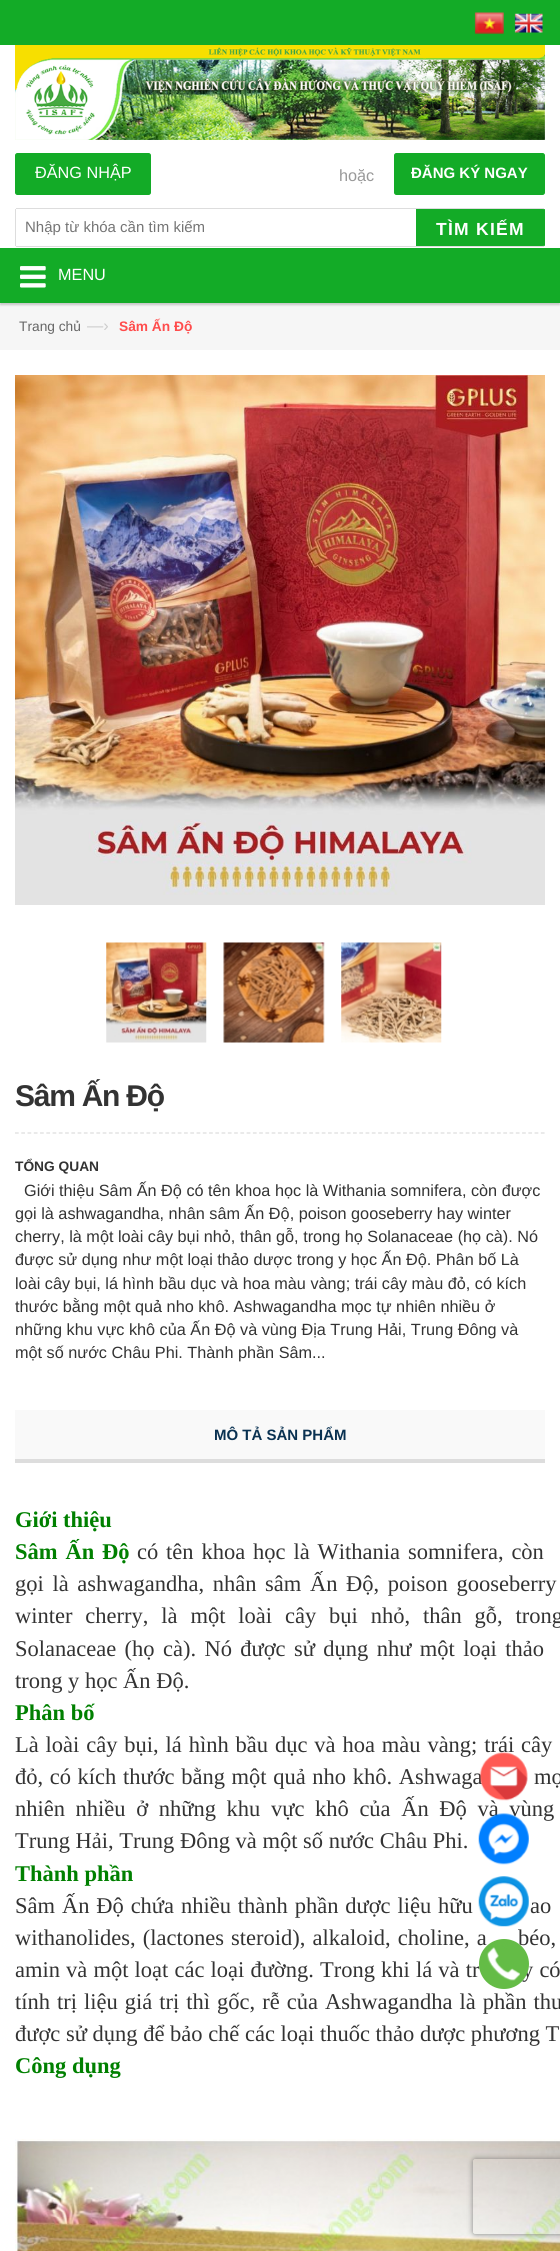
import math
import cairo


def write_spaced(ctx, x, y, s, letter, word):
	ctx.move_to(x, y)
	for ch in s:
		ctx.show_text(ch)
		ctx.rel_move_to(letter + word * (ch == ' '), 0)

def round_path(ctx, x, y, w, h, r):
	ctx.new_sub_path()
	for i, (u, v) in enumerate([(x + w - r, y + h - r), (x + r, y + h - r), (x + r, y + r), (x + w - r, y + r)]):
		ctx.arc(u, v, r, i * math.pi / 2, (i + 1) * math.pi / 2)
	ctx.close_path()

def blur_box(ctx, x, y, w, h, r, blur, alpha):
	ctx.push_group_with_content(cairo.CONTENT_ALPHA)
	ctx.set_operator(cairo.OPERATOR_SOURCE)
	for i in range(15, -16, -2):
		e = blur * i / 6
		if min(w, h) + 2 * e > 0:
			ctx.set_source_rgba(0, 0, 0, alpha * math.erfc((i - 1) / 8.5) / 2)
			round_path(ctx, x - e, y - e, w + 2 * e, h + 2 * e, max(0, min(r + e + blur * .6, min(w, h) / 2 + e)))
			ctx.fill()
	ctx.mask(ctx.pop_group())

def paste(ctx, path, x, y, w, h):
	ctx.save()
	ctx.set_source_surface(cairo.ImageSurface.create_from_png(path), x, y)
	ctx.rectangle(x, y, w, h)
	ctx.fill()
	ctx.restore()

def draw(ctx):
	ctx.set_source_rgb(1, 1, 1)
	ctx.paint()
	ctx.set_source_rgb(0.078, 0.671, 0.153)
	ctx.rectangle(0, 0, 560, 45)
	ctx.fill()
	paste(ctx, 'media/1.png', 474, 12, 30, 22)
	paste(ctx, 'media/2.png', 514, 13, 29, 20)
	paste(ctx, 'media/3.png', 15, 45, 530, 95)
	round_path(ctx, 15.5, 153.5, 135, 41, 2)
	ctx.fill_preserve()
	ctx.set_line_width(1)
	ctx.stroke()
	ctx.select_font_face('Liberation Sans')
	ctx.set_font_size(16.25)
	ctx.set_source_rgb(1, 1, 1)
	ctx.move_to(35, 178)
	ctx.show_text('ĐĂNG NHẬP')
	ctx.set_source_rgb(0.6, 0.6, 0.6)
	ctx.move_to(339, 181)
	ctx.show_text('hoặc')
	ctx.set_source_rgb(0.078, 0.671, 0.153)
	round_path(ctx, 394.5, 153.5, 150, 41, 2)
	ctx.fill_preserve()
	ctx.stroke()
	ctx.select_font_face('Liberation Sans', cairo.FONT_SLANT_NORMAL, cairo.FONT_WEIGHT_BOLD)
	ctx.set_font_size(15)
	ctx.set_source_rgb(1, 1, 1)
	ctx.move_to(411, 178)
	ctx.show_text('ĐĂNG KÝ NGAY')
	ctx.set_source_rgb(0.867, 0.867, 0.867)
	ctx.rectangle(16, 208, 528, 1)
	ctx.rectangle(16, 246, 528, 1)
	ctx.rectangle(15, 209, 1, 37)
	ctx.fill()
	ctx.select_font_face('Liberation Sans')
	ctx.set_source_rgb(0.459, 0.459, 0.459)
	ctx.move_to(25, 232)
	ctx.show_text('Nhập từ khóa cần tìm kiếm')
	ctx.set_source_rgb(0.078, 0.671, 0.153)
	ctx.new_path()
	ctx.move_to(416, 246)
	ctx.line_to(416, 209)
	ctx.line_to(542, 209)
	ctx.curve_to(544, 209, 545, 209, 545, 210)
	ctx.line_to(545, 245)
	ctx.curve_to(545, 246, 544, 246, 542, 246)
	ctx.close_path()
	ctx.fill()
	ctx.set_fill_rule(cairo.FILL_RULE_EVEN_ODD)
	ctx.new_path()
	ctx.move_to(417, 209)
	ctx.line_to(417, 246)
	ctx.line_to(416, 246)
	ctx.line_to(416, 209)
	ctx.line_to(544, 209)
	ctx.close_path()
	ctx.move_to(545, 245)
	ctx.line_to(545, 210)
	ctx.line_to(544, 209)
	ctx.line_to(544, 246)
	ctx.close_path()
	ctx.fill()
	ctx.select_font_face('Liberation Sans', cairo.FONT_SLANT_NORMAL, cairo.FONT_WEIGHT_BOLD)
	ctx.set_font_size(17.5)
	ctx.set_source_rgb(1, 1, 1)
	write_spaced(ctx, 436, 235, 'TÌM KIẾM', 1.25, 0)
	ctx.set_source_rgb(0.961, 0.961, 0.961)
	ctx.rectangle(0, 303, 560, 47)
	ctx.fill()
	ctx.set_source_rgb(0, 0, 0)
	blur_box(ctx, 0, 250, 560, 55, 0, 1, 0.2)
	ctx.set_source_rgb(0.078, 0.671, 0.153)
	ctx.rectangle(0, 248, 560, 55)
	ctx.fill()
	paste(ctx, 'media/4.png', 20, 266, 26, 22)
	ctx.select_font_face('Liberation Sans')
	ctx.set_font_size(16.25)
	ctx.set_source_rgb(1, 1, 1)
	ctx.move_to(58, 280)
	ctx.show_text('MENU')
	ctx.set_font_size(13.75)
	ctx.set_source_rgb(0.4, 0.4, 0.4)
	ctx.move_to(19, 331)
	ctx.show_text('Trang chủ')
	ctx.set_font_size(16.25)
	ctx.set_source_rgb(0.8, 0.8, 0.8)
	ctx.move_to(87, 331)
	ctx.show_text('—›')
	ctx.select_font_face('Liberation Sans', cairo.FONT_SLANT_NORMAL, cairo.FONT_WEIGHT_BOLD)
	ctx.set_font_size(13.75)
	ctx.set_source_rgb(1, 0.298, 0.298)
	ctx.move_to(119, 331)
	ctx.show_text('Sâm Ấn Độ')
	paste(ctx, 'media/5.png', 15, 375, 530, 530)
	paste(ctx, 'media/6.png', 106, 942, 101, 101)
	paste(ctx, 'media/7.png', 223, 942, 102, 101)
	paste(ctx, 'media/8.png', 341, 942, 101, 101)
	ctx.new_path()
	ctx.move_to(15, 1133)
	ctx.line_to(545, 1133)
	ctx.set_source_rgb(0.867, 0.867, 0.867)
	ctx.set_line_width(1.2)
	ctx.set_dash([3.75, 2.51])
	ctx.stroke()
	ctx.set_font_size(30)
	ctx.set_source_rgb(0.2, 0.2, 0.2)
	write_spaced(ctx, 15, 1106, 'Sâm Ấn Độ', -1.25, 0)
	ctx.set_font_size(13.75)
	ctx.move_to(15, 1171)
	ctx.show_text('TỔNG QUAN')
	ctx.select_font_face('Liberation Sans')
	ctx.set_font_size(16.25)
	for x, y, s in [
		(24, 1196, 'Giới thiệu Sâm Ấn Độ có tên khoa học là Withania somnifera, còn được'),
		(15, 1219, 'gọi là ashwagandha, nhân sâm Ấn Độ, poison gooseberry hay winter'),
		(15, 1242, 'cherry, là một loài cây bụi nhỏ, thân gỗ, trong họ Solanaceae (họ cà). Nó'),
		(15, 1265, 'được sử dụng như một loại thảo dược trong y học Ấn Độ. Phân bố Là'),
		(15, 1289, 'loài cây bụi, lá hình bầu dục và hoa màu vàng; trái cây màu đỏ, có kích'),
		(15, 1312, 'thước bằng một quả nho khô. Ashwagandha mọc tự nhiên nhiều ở'),
		(15, 1335, 'những khu vực khô của Ấn Độ và vùng Địa Trung Hải, Trung Đông và'),
		(15, 1358, 'một số nước Châu Phi. Thành phần Sâm...'),
	]:
		ctx.move_to(x, y)
		ctx.show_text(s)
	ctx.set_source_rgb(0.973, 0.973, 0.973)
	ctx.rectangle(15, 1410, 530, 49)
	ctx.fill()
	ctx.set_source_rgb(0.867, 0.867, 0.867)
	ctx.rectangle(15, 1459, 530, 4)
	ctx.fill()
	ctx.select_font_face('Liberation Sans', cairo.FONT_SLANT_NORMAL, cairo.FONT_WEIGHT_BOLD)
	ctx.set_font_size(15)
	ctx.set_source_rgb(0.039, 0.192, 0.318)
	ctx.move_to(214, 1440)
	ctx.show_text('MÔ TẢ SẢN PHẨM')
	ctx.select_font_face('Liberation Serif', cairo.FONT_SLANT_NORMAL, cairo.FONT_WEIGHT_BOLD)
	ctx.set_font_size(22.5)
	ctx.set_source_rgb(0, 0.502, 0)
	ctx.move_to(15, 1527)
	ctx.show_text('Giới thiệu')
	write_spaced(ctx, 15, 1559, 'Sâm Ấn Độ', 0, 2.25)
	ctx.select_font_face('Liberation Serif')
	ctx.set_source_rgb(0.2, 0.2, 0.2)
	write_spaced(ctx, 137, 1559, 'có tên khoa học là Withania somnifera, còn', 0, 2.25)
	write_spaced(ctx, 15, 1591, 'gọi là ashwagandha, nhân sâm Ấn Độ, poison gooseberry', 0, 3)
	write_spaced(ctx, 15, 1623, 'winter cherry, là một loài cây bụi nhỏ, thân gỗ, trong', 0, 7.25)
	write_spaced(ctx, 15, 1656, 'Solanaceae (họ cà). Nó được sử dụng như một loại thảo', 0, 2.75)
	ctx.move_to(15, 1688)
	ctx.show_text('trong y học Ấn Độ.')
	ctx.select_font_face('Liberation Serif', cairo.FONT_SLANT_NORMAL, cairo.FONT_WEIGHT_BOLD)
	ctx.set_source_rgb(0, 0.502, 0)
	ctx.move_to(15, 1720)
	ctx.show_text('Phân bố')
	ctx.select_font_face('Liberation Serif')
	ctx.set_source_rgb(0.2, 0.2, 0.2)
	write_spaced(ctx, 15, 1752, 'Là loài cây bụi, lá hình bầu dục và hoa màu vàng; trái cây', 0, 1.25)
	write_spaced(ctx, 15, 1784, 'đỏ, có kích thước bằng một quả nho khô. Ashwaga', 0, 1)
	write_spaced(ctx, 534, 1784, 'mọ', 0, 1)
	write_spaced(ctx, 15, 1816, 'nhiên nhiều ở những khu vực khô của Ấn Độ và vùng', 0, 5)
	ctx.move_to(15, 1848)
	ctx.show_text('Trung Hải, Trung Đông và một số nước Châu Phi.')
	ctx.select_font_face('Liberation Serif', cairo.FONT_SLANT_NORMAL, cairo.FONT_WEIGHT_BOLD)
	ctx.set_source_rgb(0, 0.502, 0)
	ctx.move_to(15, 1881)
	ctx.show_text('Thành phần')
	ctx.select_font_face('Liberation Serif')
	ctx.set_source_rgb(0.2, 0.2, 0.2)
	write_spaced(ctx, 15, 1913, 'Sâm Ấn Độ chứa nhiều thành phần dược liệu hữu', 0, 1.25)
	write_spaced(ctx, 530, 1913, 'ao', 0, 1.25)
	write_spaced(ctx, 15, 1945, 'withanolides, (lactones steroid), alkaloid, choline, a', 0, 1.5)
	write_spaced(ctx, 518, 1945, 'béo,', 0, 1.5)
	write_spaced(ctx, 15, 1977, 'amin và một loạt các loại đường. Trong khi lá và tr', 0, 0.5)
	write_spaced(ctx, 522, 1977, 'y có', 0, 0.5)
	write_spaced(ctx, 15, 2009, 'tính trị liệu giá trị thì gốc, rễ của Ashwagandha là phần thư', 0, 1.4)
	ctx.move_to(15, 2041)
	ctx.show_text('được sử dụng để bảo chế các loại thuốc thảo dược phương T')
	ctx.select_font_face('Liberation Serif', cairo.FONT_SLANT_NORMAL, cairo.FONT_WEIGHT_BOLD)
	ctx.set_source_rgb(0, 0.502, 0)
	ctx.move_to(15, 2073)
	ctx.show_text('Công dụng')
	paste(ctx, 'media/9.png', 15, 2139, 545, 112)
	paste(ctx, 'media/10.png', 479, 1752, 49, 49)
	paste(ctx, 'media/11.png', 478, 1813, 51, 52)
	paste(ctx, 'media/12.png', 478, 1876, 51, 51)
	ctx.set_source_rgb(0.392, 0.737, 0.275)
	ctx.arc(504, 1964, 25, 0, 2 * math.pi)
	ctx.fill()
	paste(ctx, 'media/13.png', 487, 1947, 33, 34)
	ctx.save()
	ctx.new_path()
	ctx.move_to(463, 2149)
	ctx.line_to(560, 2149)
	ctx.line_to(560, 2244)
	ctx.line_to(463, 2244)
	ctx.close_path()
	ctx.move_to(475.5, 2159)
	ctx.line_to(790.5, 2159)
	ctx.curve_to(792, 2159, 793, 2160, 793, 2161.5)
	ctx.line_to(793, 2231.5)
	ctx.curve_to(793, 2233, 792, 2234, 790.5, 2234)
	ctx.line_to(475.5, 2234)
	ctx.curve_to(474, 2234, 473, 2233, 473, 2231.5)
	ctx.line_to(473, 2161.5)
	ctx.curve_to(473, 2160, 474, 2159, 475.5, 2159)
	ctx.close_path()
	ctx.clip()
	ctx.set_source_rgb(0.502, 0.502, 0.502)
	blur_box(ctx, 473, 2159, 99, 75, 2.5, 3, 1)
	ctx.restore()


surface = cairo.ImageSurface(cairo.FORMAT_RGB24, 560, 2251)
ctx = cairo.Context(surface)
options = cairo.FontOptions()
options.set_hint_metrics(cairo.HINT_METRICS_OFF)
options.set_hint_style(cairo.HINT_STYLE_NONE)
ctx.set_font_options(options)
ctx.set_miter_limit(4)
draw(ctx)
surface.write_to_png('image.png')
